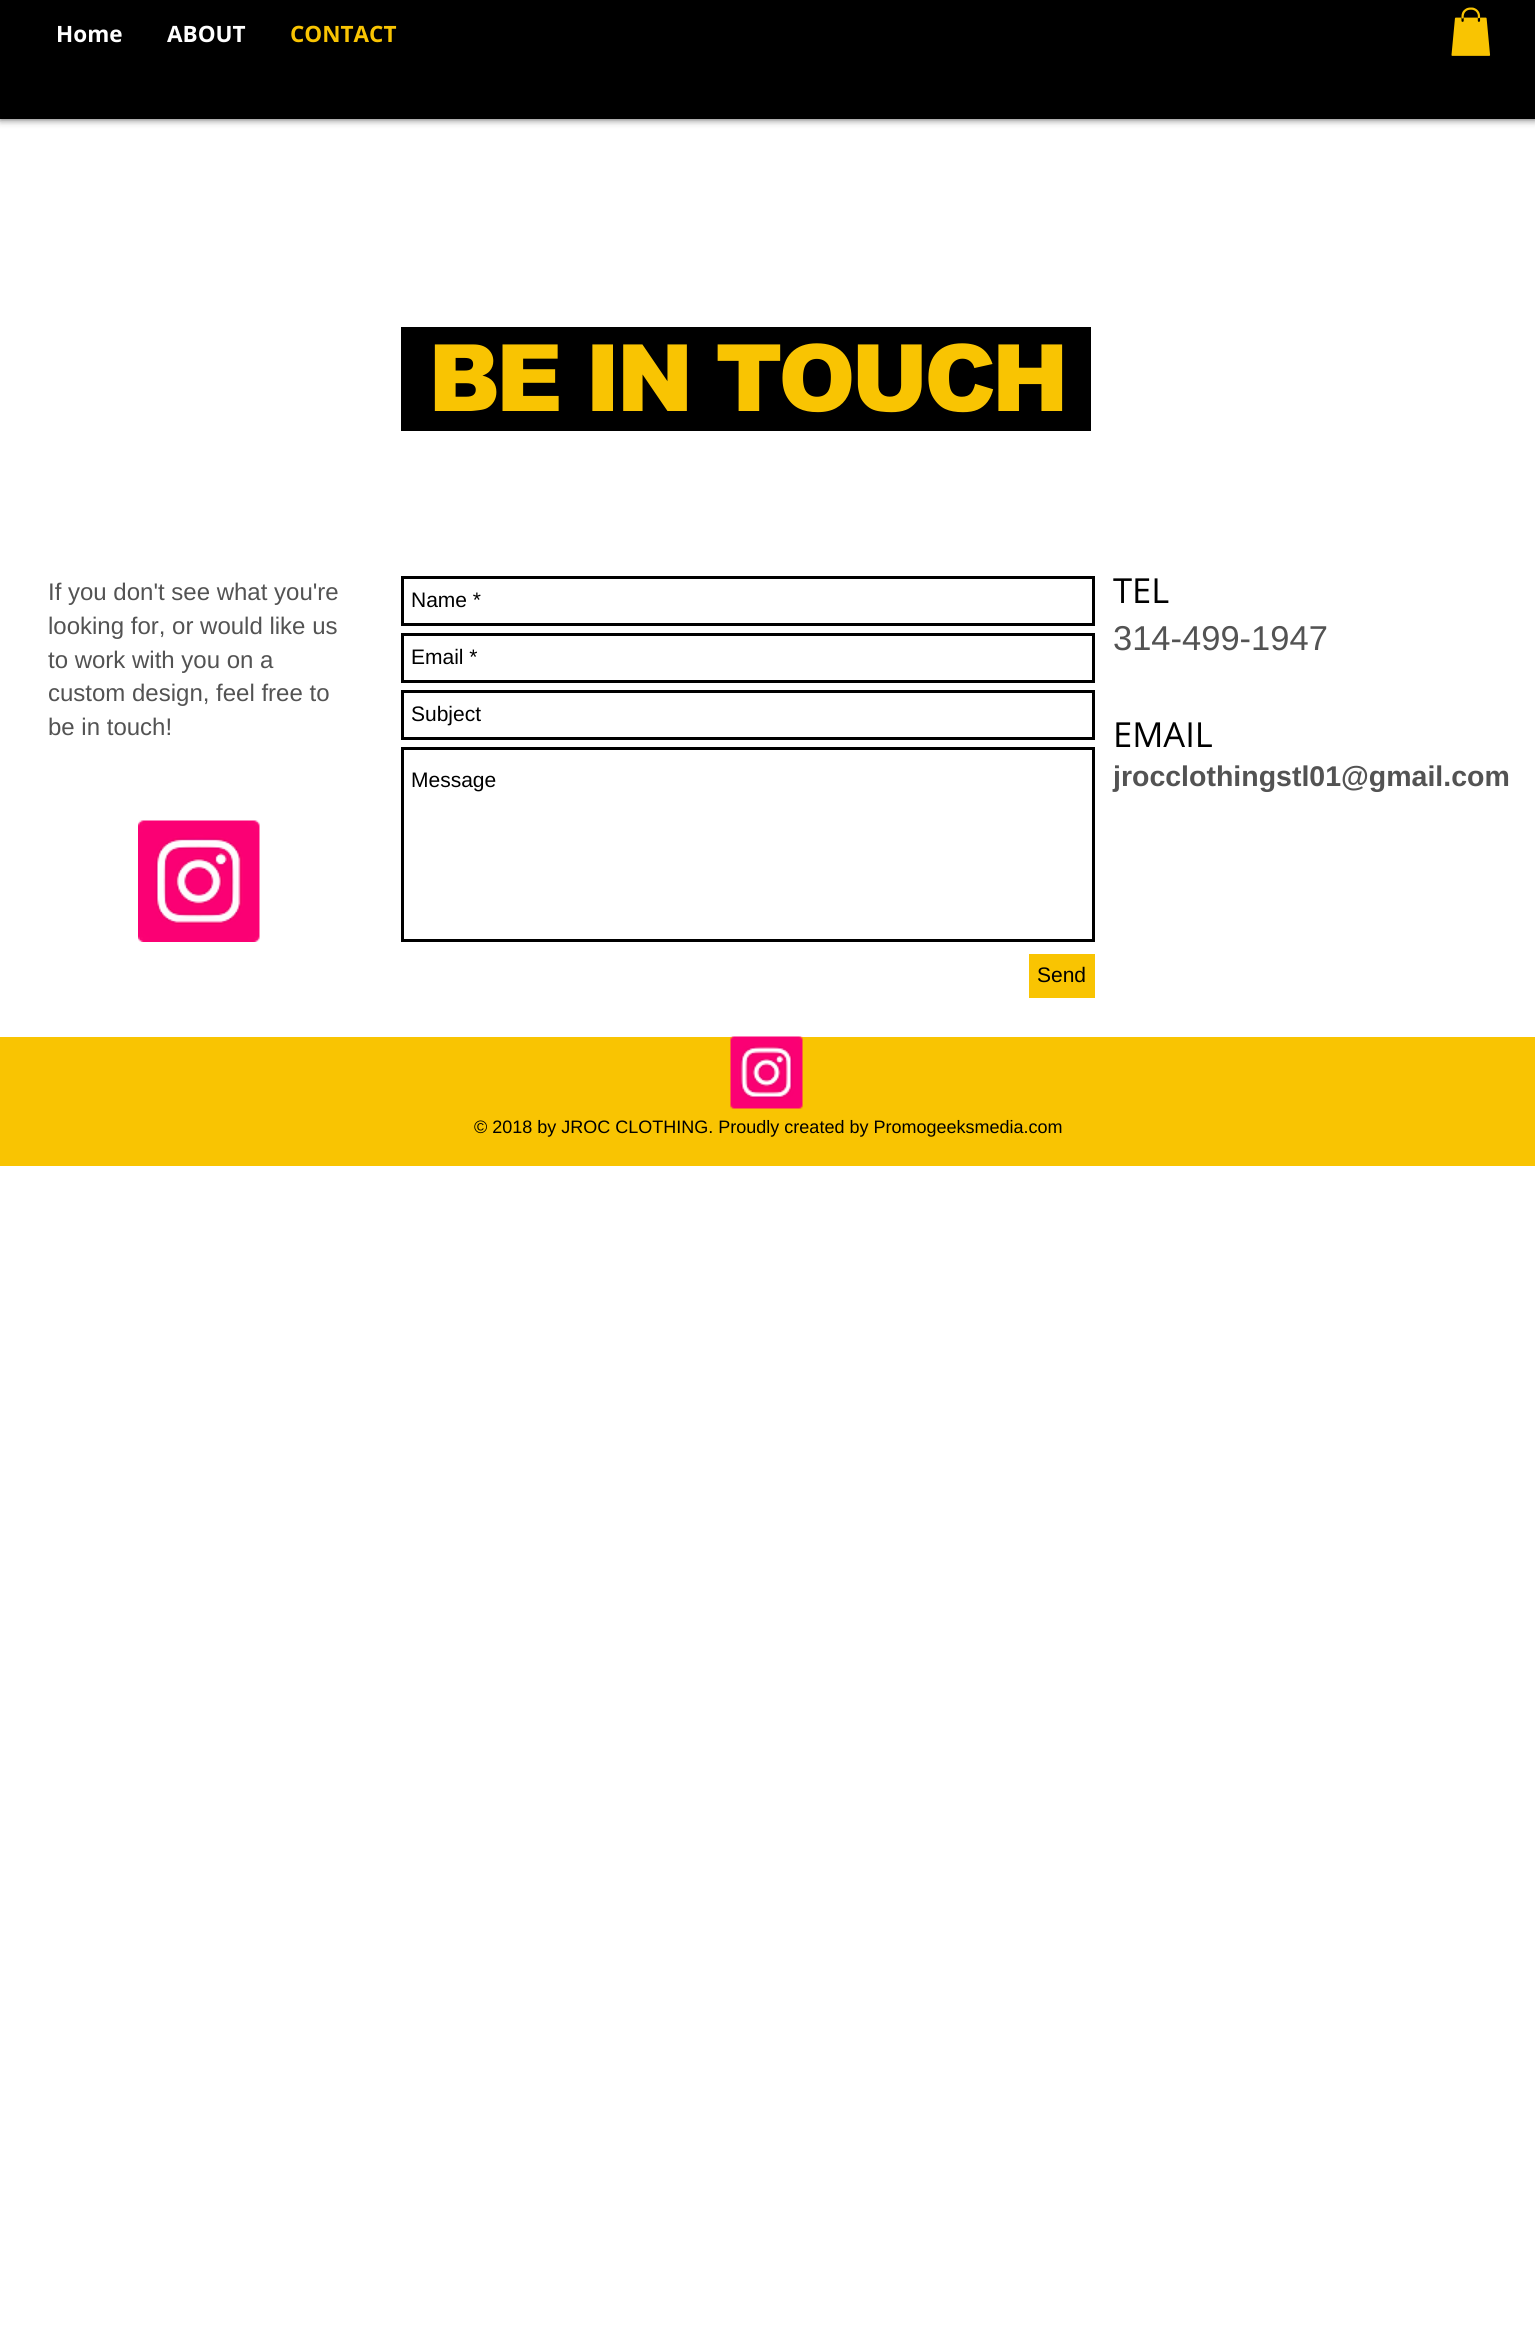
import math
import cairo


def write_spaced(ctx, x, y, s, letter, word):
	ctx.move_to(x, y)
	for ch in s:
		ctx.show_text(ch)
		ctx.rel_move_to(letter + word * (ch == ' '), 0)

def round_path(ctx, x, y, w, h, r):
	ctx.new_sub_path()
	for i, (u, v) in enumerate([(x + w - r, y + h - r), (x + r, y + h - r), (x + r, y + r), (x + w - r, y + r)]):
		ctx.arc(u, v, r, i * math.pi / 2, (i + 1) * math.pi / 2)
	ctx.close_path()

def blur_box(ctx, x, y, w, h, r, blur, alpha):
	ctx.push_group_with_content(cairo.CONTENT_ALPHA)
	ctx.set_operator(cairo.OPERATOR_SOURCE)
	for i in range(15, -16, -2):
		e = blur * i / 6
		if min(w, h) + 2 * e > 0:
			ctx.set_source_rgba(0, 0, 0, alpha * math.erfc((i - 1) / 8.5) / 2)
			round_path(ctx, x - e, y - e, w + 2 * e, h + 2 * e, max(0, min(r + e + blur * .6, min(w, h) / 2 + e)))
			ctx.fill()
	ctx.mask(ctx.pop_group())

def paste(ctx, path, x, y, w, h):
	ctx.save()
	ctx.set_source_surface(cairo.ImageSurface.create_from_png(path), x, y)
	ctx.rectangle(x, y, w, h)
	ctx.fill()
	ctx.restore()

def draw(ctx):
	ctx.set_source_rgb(1, 1, 1)
	ctx.paint()
	ctx.set_source_rgb(0, 0, 0)
	blur_box(ctx, 0, 0, 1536, 119, 0, 4, 0.7)
	ctx.set_source_rgb(0, 0, 0)
	ctx.rectangle(0, 0, 1535, 119)
	ctx.fill()
	ctx.select_font_face('Open Sans', cairo.FONT_SLANT_NORMAL, cairo.FONT_WEIGHT_BOLD)
	ctx.set_font_size(22.5)
	ctx.set_source_rgb(1, 1, 1)
	ctx.move_to(56, 42)
	ctx.show_text('Home')
	ctx.move_to(167, 42)
	ctx.show_text('ABOUT')
	ctx.set_source_rgb(0.976, 0.769, 0.008)
	ctx.move_to(290, 42)
	ctx.show_text('CONTACT')
	paste(ctx, 'media/1.png', 1451, 7, 40, 49)
	ctx.set_source_rgb(0, 0, 0)
	ctx.rectangle(401, 327, 690, 104)
	ctx.fill()
	ctx.select_font_face('arial Black')
	ctx.set_font_size(93)
	ctx.set_source_rgb(0.976, 0.769, 0.008)
	write_spaced(ctx, 428, 411, 'BE IN TOUCH', -4.6, 0)
	ctx.select_font_face('Liberation Sans')
	ctx.set_font_size(24)
	ctx.set_source_rgb(0.325, 0.325, 0.325)
	for x, y, s in [
		(48, 600, 'If you don\'t see what you\'re'),
		(48, 634, 'looking for, or would like us'),
		(48, 668, 'to work with you on a'),
		(48, 701, 'custom design, feel free to'),
		(48, 735, 'be in touch!'),
	]:
		ctx.move_to(x, y)
		ctx.show_text(s)
	ctx.rectangle(402.5, 577.5, 691, 47)
	ctx.set_source_rgb(0, 0, 0)
	ctx.set_line_width(3)
	ctx.stroke()
	ctx.set_font_size(21)
	ctx.move_to(411, 607)
	ctx.show_text('Name *')
	ctx.rectangle(402.5, 634.5, 691, 47)
	ctx.stroke()
	ctx.move_to(411, 664)
	ctx.show_text('Email *')
	ctx.rectangle(402.5, 691.5, 691, 47)
	ctx.stroke()
	ctx.move_to(411, 721)
	ctx.show_text('Subject')
	ctx.rectangle(402.5, 748.5, 691, 192)
	ctx.stroke()
	ctx.move_to(411, 787)
	ctx.show_text('Message')
	ctx.set_source_rgb(0.976, 0.769, 0.008)
	ctx.rectangle(1029, 954, 66, 44)
	ctx.fill()
	ctx.set_source_rgb(0, 0, 0)
	ctx.move_to(1037, 982)
	ctx.show_text('Send')
	ctx.select_font_face('Open Sans')
	ctx.set_font_size(34.5)
	ctx.move_to(1113, 603)
	ctx.show_text('TEL')
	ctx.select_font_face('Liberation Sans')
	ctx.set_source_rgb(0.325, 0.325, 0.325)
	ctx.move_to(1113, 650)
	ctx.show_text('314-499-1947')
	ctx.select_font_face('Open Sans')
	ctx.set_source_rgb(0, 0, 0)
	ctx.move_to(1113, 747)
	ctx.show_text('EMAIL')
	ctx.select_font_face('Liberation Sans', cairo.FONT_SLANT_NORMAL, cairo.FONT_WEIGHT_BOLD)
	ctx.set_font_size(28.5)
	ctx.set_source_rgb(0.325, 0.325, 0.325)
	ctx.move_to(1113, 786)
	ctx.show_text('jrocclothingstl01@gmail.com')
	paste(ctx, 'media/2.png', 138, 820, 122, 122)
	ctx.set_source_rgb(0.976, 0.769, 0.008)
	ctx.rectangle(0, 1037, 1535, 129)
	ctx.fill()
	paste(ctx, 'media/3.png', 730, 1036, 73, 73)
	ctx.select_font_face('Liberation Sans')
	ctx.set_font_size(18)
	ctx.set_source_rgb(0, 0, 0)
	ctx.move_to(474, 1133)
	ctx.show_text('© 2018 by JROC CLOTHING. Proudly created by Promogeeksmedia.com')


surface = cairo.ImageSurface(cairo.FORMAT_RGB24, 1535, 2340)
ctx = cairo.Context(surface)
options = cairo.FontOptions()
options.set_hint_metrics(cairo.HINT_METRICS_OFF)
options.set_hint_style(cairo.HINT_STYLE_NONE)
ctx.set_font_options(options)
ctx.set_miter_limit(4)
draw(ctx)
surface.write_to_png('image.png')
